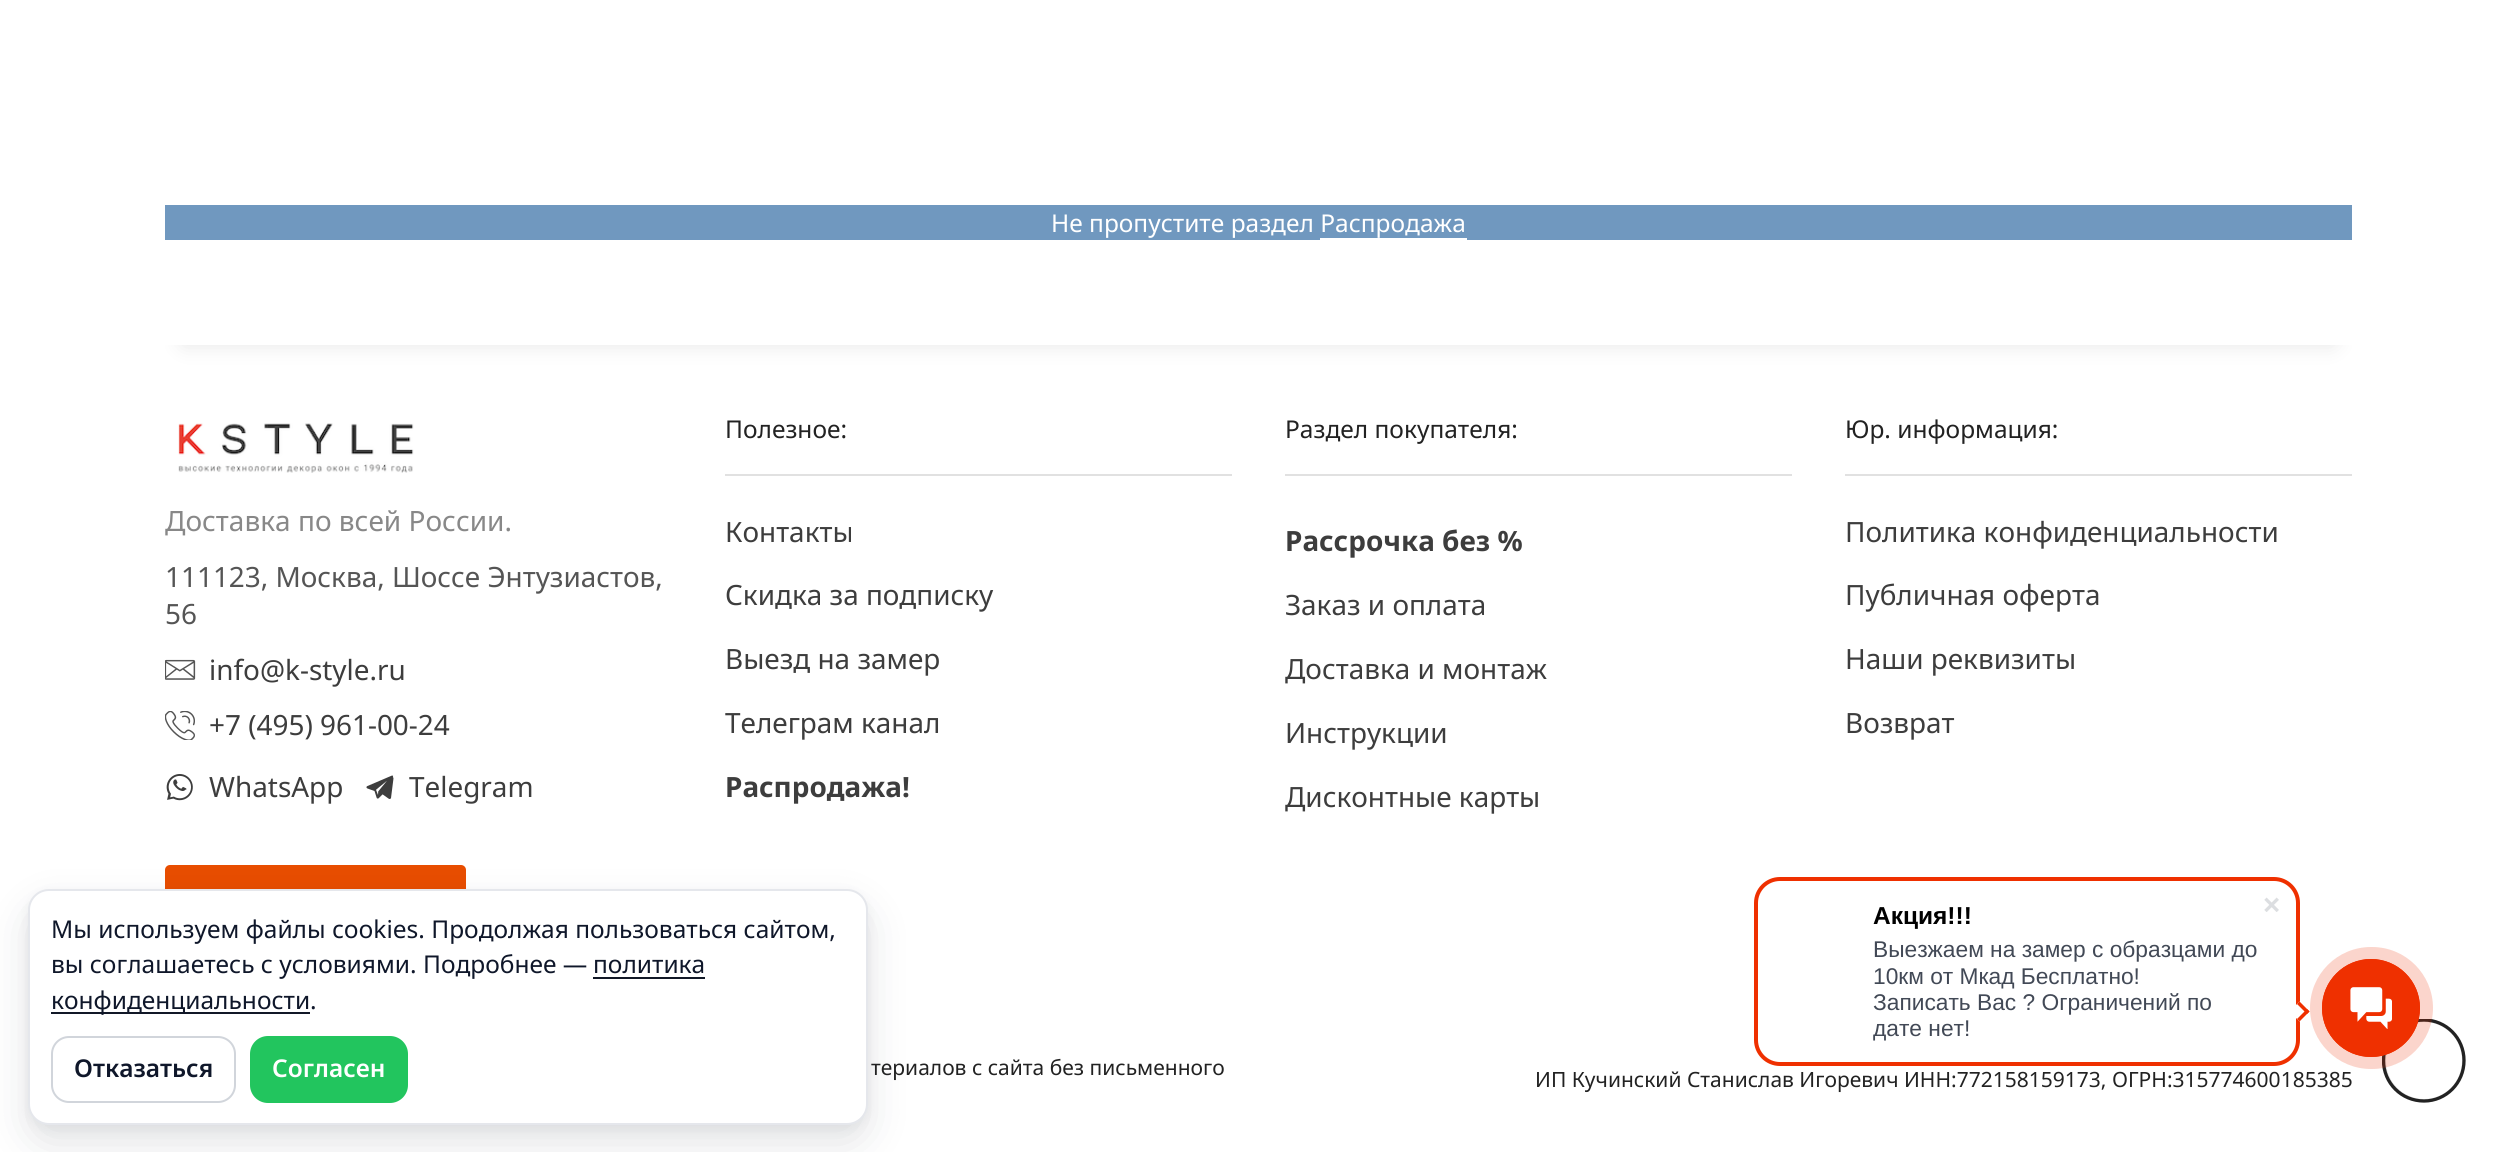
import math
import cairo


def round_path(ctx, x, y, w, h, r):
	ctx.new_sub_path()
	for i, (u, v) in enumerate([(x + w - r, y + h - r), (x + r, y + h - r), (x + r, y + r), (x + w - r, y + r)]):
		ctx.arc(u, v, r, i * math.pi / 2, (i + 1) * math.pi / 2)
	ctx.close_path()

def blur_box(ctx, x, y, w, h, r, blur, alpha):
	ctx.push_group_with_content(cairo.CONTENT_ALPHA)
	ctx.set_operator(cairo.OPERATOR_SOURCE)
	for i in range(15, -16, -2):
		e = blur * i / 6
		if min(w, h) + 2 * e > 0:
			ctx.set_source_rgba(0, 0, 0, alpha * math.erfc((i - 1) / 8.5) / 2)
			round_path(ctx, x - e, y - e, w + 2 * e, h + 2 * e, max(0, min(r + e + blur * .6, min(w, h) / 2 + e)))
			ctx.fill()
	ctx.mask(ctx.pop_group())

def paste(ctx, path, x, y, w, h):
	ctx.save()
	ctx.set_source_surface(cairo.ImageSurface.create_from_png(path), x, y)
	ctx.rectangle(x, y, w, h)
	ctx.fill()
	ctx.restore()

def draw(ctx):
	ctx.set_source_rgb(1, 1, 1)
	ctx.paint()
	ctx.set_source_rgb(0.439, 0.596, 0.749)
	ctx.rectangle(165, 205, 2187, 35)
	ctx.fill()
	ctx.select_font_face('Noto Sans')
	ctx.set_font_size(24.5)
	ctx.set_source_rgb(1, 1, 1)
	ctx.move_to(1051, 232)
	ctx.show_text('Не пропустите раздел Распродажа')
	ctx.rectangle(1320, 238, 147, 2)
	ctx.fill()
	ctx.save()
	ctx.rectangle(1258, 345, 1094, 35)
	ctx.clip()
	ctx.set_source_rgb(0.922, 0.922, 0.922)
	blur_box(ctx, 144, 324, 2194, 24, 12, 9, 1)
	ctx.restore()
	ctx.save()
	ctx.rectangle(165, 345, 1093, 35)
	ctx.clip()
	ctx.set_source_rgb(0.922, 0.922, 0.922)
	blur_box(ctx, 179, 324, 2194, 24, 12, 9, 1)
	ctx.restore()
	paste(ctx, 'media/1.png', 178, 423, 236, 50)
	ctx.set_font_size(28)
	ctx.set_source_rgb(0.533, 0.533, 0.533)
	ctx.move_to(165, 531)
	ctx.show_text('Доставка по всей России.')
	ctx.set_font_size(27.9)
	ctx.set_source_rgb(0.333, 0.333, 0.333)
	ctx.move_to(165, 587)
	ctx.show_text('111123, Москва, Шоссе Энтузиастов,')
	ctx.move_to(165, 624)
	ctx.show_text('56')
	paste(ctx, 'media/2.png', 165, 659, 31, 21)
	ctx.set_source_rgb(0.239, 0.239, 0.239)
	ctx.move_to(209, 680)
	ctx.show_text('info@k-style.ru')
	paste(ctx, 'media/3.png', 165, 711, 30, 29)
	ctx.move_to(209, 735)
	ctx.show_text('+7 (495) 961-00-24')
	paste(ctx, 'media/4.png', 166, 774, 27, 27)
	ctx.move_to(209, 797)
	ctx.show_text('WhatsApp')
	paste(ctx, 'media/5.png', 366, 775, 28, 24)
	ctx.move_to(409, 797)
	ctx.show_text('Telegram')
	ctx.set_source_rgb(0.91, 0.302, 0)
	round_path(ctx, 165, 865, 301, 56, 5)
	ctx.fill()
	ctx.set_source_rgb(0.882, 0.882, 0.882)
	ctx.rectangle(725, 474, 507, 2)
	ctx.fill()
	ctx.set_font_size(24.5)
	ctx.set_source_rgb(0.133, 0.133, 0.133)
	ctx.move_to(725, 438)
	ctx.show_text('Полезное:')
	ctx.set_font_size(27.9)
	ctx.set_source_rgb(0.239, 0.239, 0.239)
	for x, y, s in [
		(725, 542, 'Контакты'),
		(725, 605, 'Скидка за подписку'),
		(725, 669, 'Выезд на замер'),
		(725, 733, 'Телеграм канал'),
	]:
		ctx.move_to(x, y)
		ctx.show_text(s)
	ctx.select_font_face('Noto Sans', cairo.FONT_SLANT_NORMAL, cairo.FONT_WEIGHT_BOLD)
	ctx.move_to(725, 797)
	ctx.show_text('Распродажа!')
	ctx.set_source_rgb(0.882, 0.882, 0.882)
	ctx.rectangle(1285, 474, 507, 2)
	ctx.fill()
	ctx.select_font_face('Noto Sans')
	ctx.set_font_size(24.5)
	ctx.set_source_rgb(0.133, 0.133, 0.133)
	ctx.move_to(1285, 438)
	ctx.show_text('Раздел покупателя:')
	ctx.select_font_face('Noto Sans', cairo.FONT_SLANT_NORMAL, cairo.FONT_WEIGHT_BOLD)
	ctx.set_font_size(27.9)
	ctx.set_source_rgb(0.239, 0.239, 0.239)
	ctx.move_to(1285, 551)
	ctx.show_text('Рассрочка без %')
	ctx.select_font_face('Noto Sans')
	for x, y, s in [
		(1285, 615, 'Заказ и оплата'),
		(1285, 679, 'Доставка и монтаж'),
		(1285, 743, 'Инструкции'),
		(1285, 807, 'Дисконтные карты'),
	]:
		ctx.move_to(x, y)
		ctx.show_text(s)
	ctx.set_source_rgb(0.882, 0.882, 0.882)
	ctx.rectangle(1845, 474, 507, 2)
	ctx.fill()
	ctx.set_font_size(24.5)
	ctx.set_source_rgb(0.133, 0.133, 0.133)
	ctx.move_to(1845, 438)
	ctx.show_text('Юр. информация:')
	ctx.set_font_size(27.9)
	ctx.set_source_rgb(0.239, 0.239, 0.239)
	for x, y, s in [
		(1845, 542, 'Политика конфиденциальности'),
		(1845, 605, 'Публичная оферта'),
		(1845, 669, 'Наши реквизиты'),
		(1845, 733, 'Возврат'),
	]:
		ctx.move_to(x, y)
		ctx.show_text(s)
	ctx.set_font_size(21)
	ctx.set_source_rgb(0.133, 0.133, 0.133)
	ctx.move_to(871, 1075)
	ctx.show_text('териалов с сайта без письменного')
	ctx.move_to(1535, 1087)
	ctx.show_text('ИП Кучинский Станислав Игоревич ИНН:772158159173, ОГРН:315774600185385')
	round_path(ctx, 2385, 1021, 78, 79, 39)
	ctx.set_source_rgb(0.882, 0.882, 0.882)
	ctx.stroke()
	ctx.save()
	ctx.rectangle(2382, 1019, 84, 84)
	ctx.clip()
	ctx.new_path()
	ctx.move_to(2424, 1020)
	ctx.curve_to(2446, 1020, 2464, 1038, 2464, 1060.5)
	ctx.curve_to(2464, 1083, 2446, 1101, 2424, 1101)
	ctx.curve_to(2401.5, 1101, 2383.5, 1083, 2383.5, 1060.5)
	ctx.curve_to(2383.5, 1038, 2401.5, 1020, 2424, 1020)
	ctx.set_source_rgb(0.133, 0.133, 0.133)
	ctx.set_line_width(3.3)
	ctx.stroke()
	ctx.restore()
	ctx.set_source_rgb(0.063, 0.094, 0.157)
	blur_box(ctx, 28, 893, 840, 236, 21, 5, 0.06)
	blur_box(ctx, 28, 907, 840, 236, 21, 21, 0.12)
	ctx.set_source_rgb(1, 1, 1)
	round_path(ctx, 29, 890, 838, 234, 20)
	ctx.fill_preserve()
	ctx.set_source_rgb(0.898, 0.906, 0.922)
	ctx.stroke()
	ctx.set_font_size(24.5)
	ctx.set_source_rgb(0.059, 0.09, 0.165)
	for x, y, s in [
		(51, 938, 'Мы используем файлы cookies. Продолжая пользоваться сайтом,'),
		(51, 973, 'вы соглашаетесь с условиями. Подробнее —'),
		(593, 973, 'политика'),
	]:
		ctx.move_to(x, y)
		ctx.show_text(s)
	ctx.set_source_rgb(0.067, 0.094, 0.153)
	ctx.rectangle(593, 977, 112, 2)
	ctx.fill()
	ctx.rectangle(51, 1012, 259, 2)
	ctx.fill()
	ctx.set_source_rgb(0.059, 0.09, 0.165)
	ctx.move_to(51, 1009)
	ctx.show_text('конфиденциальности')
	ctx.move_to(310, 1009)
	ctx.show_text('.')
	round_path(ctx, 52, 1037, 183, 65, 17)
	ctx.set_source_rgb(0.82, 0.835, 0.859)
	ctx.stroke()
	ctx.select_font_face('Noto Sans SemiBold')
	ctx.set_source_rgb(0.059, 0.09, 0.165)
	ctx.move_to(74, 1077)
	ctx.show_text('Отказаться')
	ctx.set_source_rgb(0.133, 0.773, 0.369)
	round_path(ctx, 251, 1037, 156, 65, 17)
	ctx.fill_preserve()
	ctx.stroke()
	ctx.set_source_rgb(1, 1, 1)
	ctx.move_to(272, 1077)
	ctx.show_text('Согласен')
	round_path(ctx, 1756, 879, 542, 185, 24)
	ctx.set_source_rgb(0.937, 0.188, 0)
	ctx.set_line_width(4)
	ctx.stroke()
	paste(ctx, 'media/6.png', 2264, 897, 15, 15)
	ctx.select_font_face('Liberation Sans', cairo.FONT_SLANT_NORMAL, cairo.FONT_WEIGHT_BOLD)
	ctx.set_source_rgb(0, 0, 0)
	ctx.move_to(1873, 924)
	ctx.show_text('Акция!!!')
	ctx.select_font_face('Liberation Sans')
	ctx.set_font_size(22.75)
	ctx.set_source_rgb(0.259, 0.286, 0.337)
	for x, y, s in [
		(1873, 957, 'Выезжаем на замер с образцами до'),
		(1873, 984, '10км от Мкад Бесплатно!'),
		(1873, 1010, 'Записать Вас ? Ограничений по'),
		(1873, 1036, 'дате нет!'),
	]:
		ctx.move_to(x, y)
		ctx.show_text(s)
	ctx.set_source_rgb(1, 1, 1)
	ctx.new_path()
	ctx.move_to(2289.5, 1011.5)
	ctx.line_to(2299.5, 1001.5)
	ctx.line_to(2309.5, 1011.5)
	ctx.line_to(2299.5, 1021.5)
	ctx.close_path()
	ctx.fill()
	ctx.set_source_rgb(0.937, 0.188, 0)
	ctx.new_path()
	ctx.move_to(2297, 1004)
	ctx.line_to(2299.5, 1001.5)
	ctx.line_to(2309.5, 1011.5)
	ctx.line_to(2307, 1014)
	ctx.close_path()
	ctx.fill()
	ctx.new_path()
	ctx.move_to(2297, 1019)
	ctx.line_to(2307, 1009)
	ctx.line_to(2309.5, 1011.5)
	ctx.line_to(2299.5, 1021.5)
	ctx.close_path()
	ctx.fill()
	ctx.set_source_rgba(0.937, 0.188, 0, 0.2)
	round_path(ctx, 2310, 947, 123, 122, 61)
	ctx.fill()
	ctx.arc(2371, 1008, 48.5, 0, 2 * math.pi)
	ctx.set_source_rgb(0.937, 0.188, 0)
	ctx.set_line_width(1)
	ctx.stroke()
	ctx.arc(2371, 1008, 49, 0, 2 * math.pi)
	ctx.fill()
	paste(ctx, 'media/7.png', 2350, 987, 42, 42)


surface = cairo.ImageSurface(cairo.FORMAT_RGB24, 2516, 1152)
ctx = cairo.Context(surface)
options = cairo.FontOptions()
options.set_hint_metrics(cairo.HINT_METRICS_OFF)
options.set_hint_style(cairo.HINT_STYLE_NONE)
ctx.set_font_options(options)
ctx.set_miter_limit(4)
draw(ctx)
surface.write_to_png('image.png')
